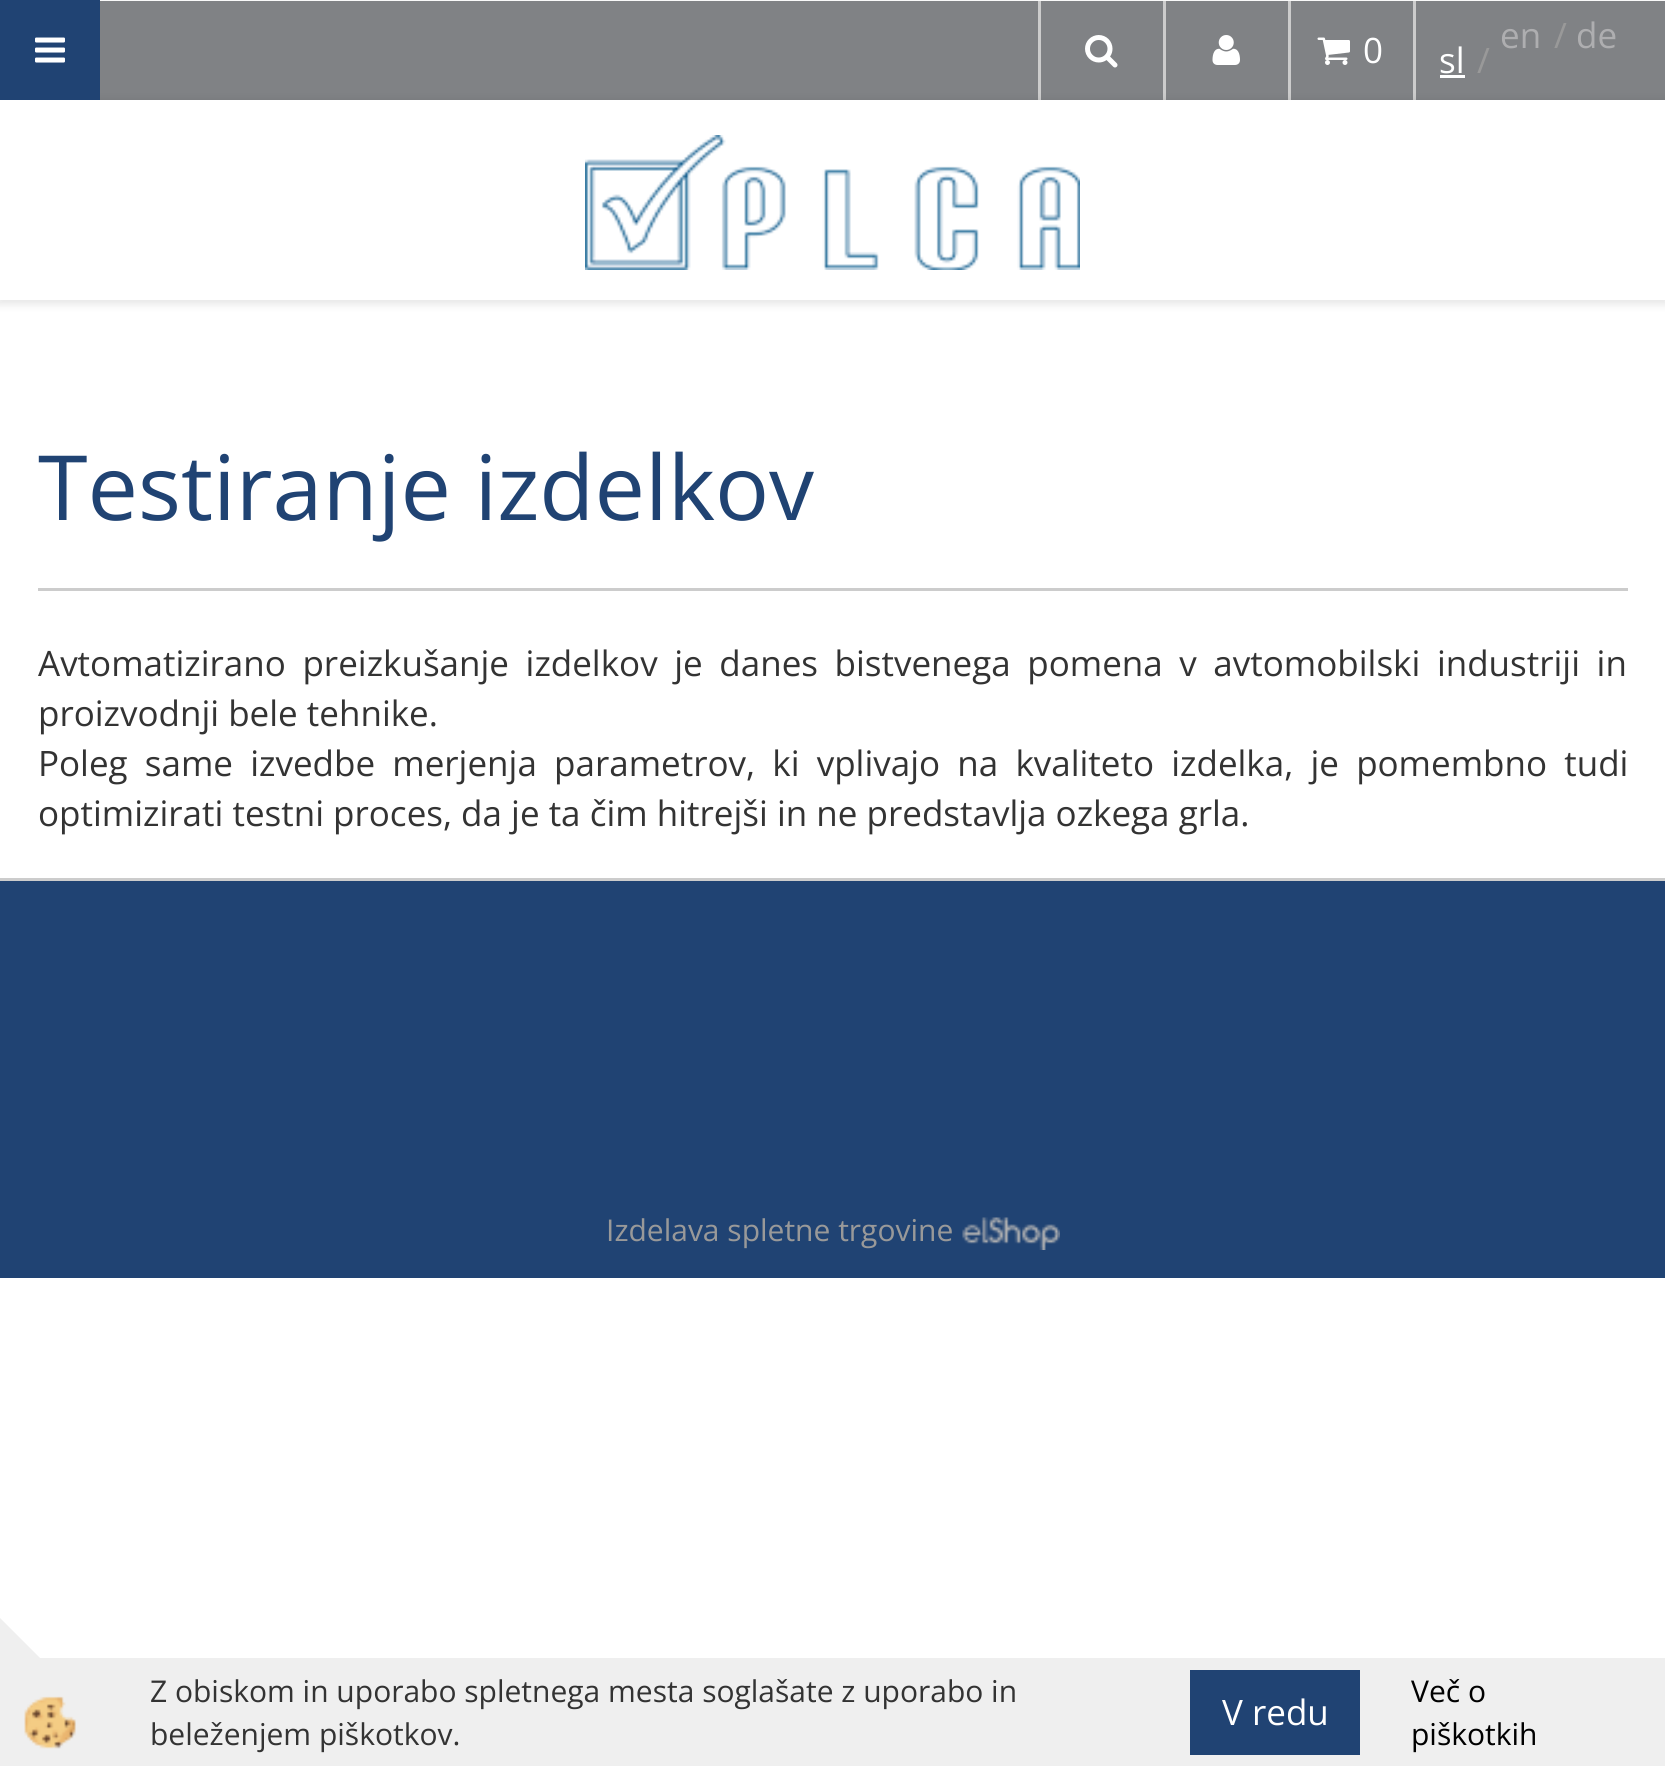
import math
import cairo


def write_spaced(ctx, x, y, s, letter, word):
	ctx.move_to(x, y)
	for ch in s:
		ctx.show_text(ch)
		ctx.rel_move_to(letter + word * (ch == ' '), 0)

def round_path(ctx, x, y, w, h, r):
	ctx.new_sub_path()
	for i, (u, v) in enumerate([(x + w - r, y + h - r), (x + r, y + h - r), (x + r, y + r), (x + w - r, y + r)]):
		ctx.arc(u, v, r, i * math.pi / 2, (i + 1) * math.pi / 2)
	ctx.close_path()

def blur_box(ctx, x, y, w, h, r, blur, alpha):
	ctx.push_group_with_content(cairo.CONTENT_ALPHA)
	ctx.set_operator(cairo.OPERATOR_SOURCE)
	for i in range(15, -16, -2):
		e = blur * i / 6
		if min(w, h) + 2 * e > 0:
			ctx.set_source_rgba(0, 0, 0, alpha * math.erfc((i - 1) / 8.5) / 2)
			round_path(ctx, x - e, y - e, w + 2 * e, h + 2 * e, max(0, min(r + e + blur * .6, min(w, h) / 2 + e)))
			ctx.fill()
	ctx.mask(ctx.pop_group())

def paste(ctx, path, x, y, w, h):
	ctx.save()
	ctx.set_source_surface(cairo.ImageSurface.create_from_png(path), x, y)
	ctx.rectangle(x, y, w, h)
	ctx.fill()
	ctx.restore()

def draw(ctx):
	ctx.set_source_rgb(1, 1, 1)
	ctx.paint()
	ctx.set_source_rgb(0.502, 0.51, 0.522)
	ctx.rectangle(100, 1, 1565, 99)
	ctx.fill()
	ctx.set_source_rgb(0.8, 0.8, 0.8)
	ctx.rectangle(1038, 0, 3, 100)
	ctx.rectangle(1163, 0, 3, 100)
	ctx.rectangle(1288, 0, 3, 100)
	ctx.rectangle(1413, 0, 3, 100)
	ctx.fill()
	ctx.set_source_rgb(0.973, 0.973, 0.973)
	ctx.rectangle(100, 0, 1565, 1)
	ctx.fill()
	ctx.save()
	ctx.set_fill_rule(cairo.FILL_RULE_EVEN_ODD)
	ctx.new_path()
	ctx.move_to(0, 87)
	ctx.line_to(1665, 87)
	ctx.line_to(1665, 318)
	ctx.line_to(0, 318)
	ctx.close_path()
	ctx.move_to(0, 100)
	ctx.line_to(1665, 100)
	ctx.line_to(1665, 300)
	ctx.line_to(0, 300)
	ctx.close_path()
	ctx.clip()
	ctx.set_source_rgb(0, 0, 0)
	blur_box(ctx, -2, 100, 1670, 205, 0, 4, 0.09)
	ctx.restore()
	ctx.set_source_rgb(0.125, 0.263, 0.451)
	ctx.rectangle(0, 0, 100, 100)
	ctx.fill()
	paste(ctx, 'media/1.png', 35, 37, 30, 26)
	paste(ctx, 'media/2.png', 1085, 35, 33, 33)
	paste(ctx, 'media/3.png', 1212, 35, 28, 30)
	paste(ctx, 'media/4.png', 1317, 37, 33, 28)
	ctx.select_font_face('Open Sans')
	ctx.set_font_size(35)
	ctx.set_source_rgb(1, 1, 1)
	ctx.move_to(1363, 63)
	ctx.show_text('0')
	ctx.set_source_rgb(0.682, 0.682, 0.69)
	ctx.move_to(1500, 48)
	ctx.show_text('en')
	ctx.set_source_rgb(0.6, 0.6, 0.6)
	ctx.move_to(1554, 48)
	ctx.show_text('/')
	ctx.set_source_rgb(0.682, 0.682, 0.69)
	ctx.move_to(1576, 48)
	ctx.show_text('de')
	ctx.set_source_rgb(1, 1, 1)
	ctx.move_to(1439, 73)
	ctx.show_text('sl')
	ctx.rectangle(1440, 75, 25, 3)
	ctx.fill()
	ctx.set_source_rgb(0.6, 0.6, 0.6)
	ctx.move_to(1477, 73)
	ctx.show_text('/')
	paste(ctx, 'media/5.png', 585, 135, 495, 135)
	ctx.set_font_size(90)
	ctx.set_source_rgb(0.125, 0.263, 0.451)
	ctx.move_to(38, 520)
	ctx.show_text('Testiranje izdelkov')
	ctx.set_source_rgb(0.8, 0.8, 0.8)
	ctx.rectangle(38, 588, 1590, 3)
	ctx.fill()
	ctx.set_font_size(35)
	ctx.set_source_rgb(0.2, 0.2, 0.2)
	write_spaced(ctx, 38, 676, 'Avtomatizirano preizkušanje izdelkov je danes bistvenega pomena v avtomobilski industriji in', 0, 7.5)
	ctx.move_to(38, 726)
	ctx.show_text('proizvodnji bele tehnike.')
	write_spaced(ctx, 38, 776, 'Poleg same izvedbe merjenja parametrov, ki vplivajo na kvaliteto izdelka, je pomembno tudi', 0, 8.1)
	ctx.move_to(38, 826)
	ctx.show_text('optimizirati testni proces, da je ta čim hitrejši in ne predstavlja ozkega grla.')
	ctx.set_source_rgb(0.125, 0.263, 0.451)
	ctx.rectangle(0, 881, 1665, 397)
	ctx.fill()
	ctx.set_source_rgb(0.8, 0.8, 0.8)
	ctx.rectangle(0, 878, 1665, 3)
	ctx.fill()
	ctx.set_font_size(30)
	ctx.set_source_rgb(0.6, 0.6, 0.6)
	ctx.move_to(606, 1241)
	ctx.show_text('Izdelava spletne trgovine')
	paste(ctx, 'media/6.png', 962, 1217, 98, 33)
	ctx.set_source_rgb(0.937, 0.937, 0.937)
	ctx.rectangle(40, 1658, 1625, 108)
	ctx.fill()
	ctx.new_path()
	ctx.move_to(150, 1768)
	ctx.line_to(0, 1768)
	ctx.line_to(0, 1618)
	ctx.close_path()
	ctx.fill()
	paste(ctx, 'media/7.png', 24, 1696, 52, 53)
	ctx.set_source_rgb(0.2, 0.2, 0.2)
	ctx.move_to(150, 1702)
	ctx.show_text('Z obiskom in uporabo spletnega mesta soglašate z uporabo in')
	ctx.set_source_rgb(0.125, 0.263, 0.451)
	ctx.rectangle(1190, 1670, 170, 85)
	ctx.fill()
	ctx.set_font_size(35)
	ctx.set_source_rgb(1, 1, 1)
	ctx.move_to(1222, 1725)
	ctx.show_text('V redu')
	ctx.set_font_size(30)
	ctx.set_source_rgb(0, 0, 0)
	ctx.move_to(1411, 1702)
	ctx.show_text('Več o')
	ctx.move_to(1411, 1745)
	ctx.show_text('piškotkih')
	ctx.set_source_rgb(0.2, 0.2, 0.2)
	ctx.move_to(150, 1745)
	ctx.show_text('beleženjem piškotkov.')


surface = cairo.ImageSurface(cairo.FORMAT_RGB24, 1665, 1766)
ctx = cairo.Context(surface)
options = cairo.FontOptions()
options.set_hint_metrics(cairo.HINT_METRICS_OFF)
options.set_hint_style(cairo.HINT_STYLE_NONE)
ctx.set_font_options(options)
ctx.set_miter_limit(4)
draw(ctx)
surface.write_to_png('image.png')
